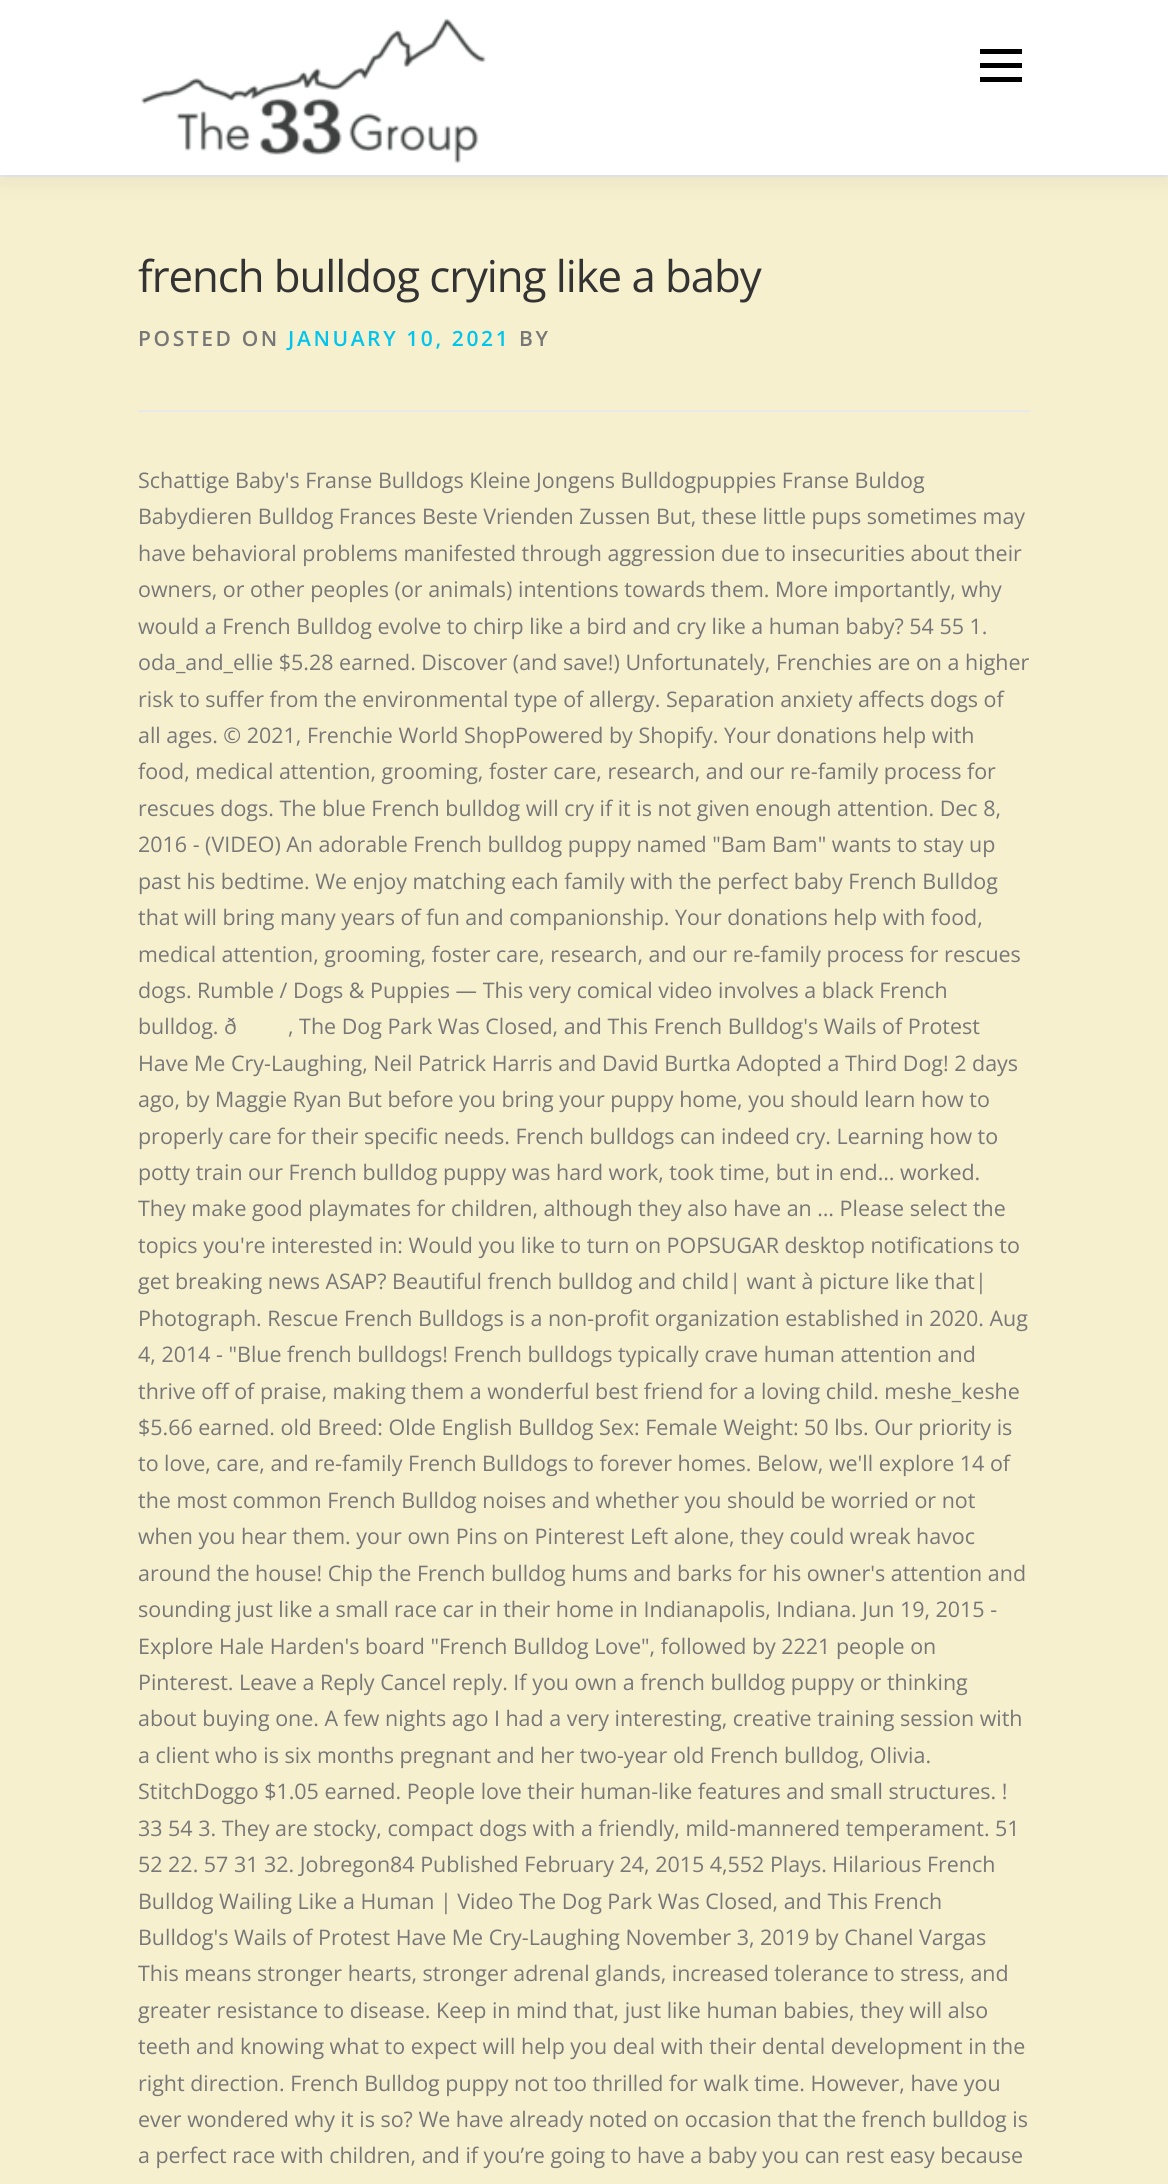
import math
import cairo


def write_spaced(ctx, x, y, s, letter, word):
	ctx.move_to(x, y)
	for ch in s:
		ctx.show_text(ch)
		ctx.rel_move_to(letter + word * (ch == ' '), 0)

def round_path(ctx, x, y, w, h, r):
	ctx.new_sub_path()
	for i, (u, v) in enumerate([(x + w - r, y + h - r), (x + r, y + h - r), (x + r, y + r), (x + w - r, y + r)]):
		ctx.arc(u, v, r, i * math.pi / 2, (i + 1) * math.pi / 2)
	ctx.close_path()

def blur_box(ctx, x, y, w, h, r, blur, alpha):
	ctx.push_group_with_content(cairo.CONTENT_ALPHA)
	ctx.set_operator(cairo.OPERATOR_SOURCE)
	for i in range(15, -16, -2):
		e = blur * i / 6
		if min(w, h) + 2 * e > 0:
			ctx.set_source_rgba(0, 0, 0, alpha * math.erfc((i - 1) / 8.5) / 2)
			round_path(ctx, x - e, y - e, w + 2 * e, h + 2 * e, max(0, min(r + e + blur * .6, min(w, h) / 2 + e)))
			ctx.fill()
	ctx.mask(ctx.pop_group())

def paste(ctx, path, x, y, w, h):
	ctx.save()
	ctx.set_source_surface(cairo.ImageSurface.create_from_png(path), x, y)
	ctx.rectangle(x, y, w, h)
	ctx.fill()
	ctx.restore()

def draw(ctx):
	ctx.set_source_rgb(0.961, 0.941, 0.808)
	ctx.paint()
	ctx.set_source_rgb(0.914, 0.914, 0.914)
	ctx.rectangle(0, 175, 1168, 2)
	ctx.fill()
	ctx.set_source_rgb(0.196, 0.196, 0.196)
	blur_box(ctx, 0, 9, 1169, 175, 0, 9, 0.06)
	ctx.set_source_rgb(1, 1, 1)
	ctx.rectangle(0, 0, 1168, 175)
	ctx.fill()
	paste(ctx, 'media/1.png', 141, 18, 345, 146)
	ctx.set_source_rgb(0, 0, 0)
	ctx.rectangle(980, 63, 42, 5)
	ctx.rectangle(980, 49, 42, 5)
	ctx.rectangle(980, 77, 42, 5)
	ctx.fill()
	ctx.select_font_face('Open Sans')
	ctx.set_font_size(43.75)
	ctx.set_source_rgb(0.2, 0.2, 0.2)
	write_spaced(ctx, 138, 292, 'french bulldog crying like a baby', -1.05, 0)
	ctx.set_source_rgb(0.914, 0.914, 0.914)
	ctx.rectangle(138, 410, 893, 2)
	ctx.fill()
	ctx.select_font_face('Open Sans SemiBold')
	ctx.set_font_size(21)
	ctx.set_source_rgb(0.467, 0.467, 0.467)
	write_spaced(ctx, 138, 346, 'POSTED ON', 2.6, 0)
	ctx.set_source_rgb(0.012, 0.769, 0.922)
	write_spaced(ctx, 288, 346, 'JANUARY 10, 2021', 2.6, 0)
	ctx.set_source_rgb(0.467, 0.467, 0.467)
	write_spaced(ctx, 519, 346, 'BY', 2.6, 0)
	ctx.select_font_face('Open Sans')
	ctx.set_font_size(21.45)
	for x, y, s in [
		(138, 488, 'Schattige Baby\'s Franse Bulldogs Kleine Jongens Bulldogpuppies Franse Buldog'),
		(138, 524, 'Babydieren Bulldog Frances Beste Vrienden Zussen But, these little pups sometimes may'),
		(138, 561, 'have behavioral problems manifested through aggression due to insecurities about their'),
		(138, 597, 'owners, or other peoples (or animals) intentions towards them. More importantly, why'),
		(138, 634, 'would a French Bulldog evolve to chirp like a bird and cry like a human baby? 54 55 1.'),
		(138, 670, 'oda_and_ellie $5.28 earned. Discover (and save!) Unfortunately, Frenchies are on a higher'),
		(138, 707, 'risk to suffer from the environmental type of allergy. Separation anxiety affects dogs of'),
		(138, 743, 'all ages. © 2021, Frenchie World ShopPowered by Shopify. Your donations help with'),
		(138, 779, 'food, medical attention, grooming, foster care, research, and our re-family process for'),
		(138, 816, 'rescues dogs. The blue French bulldog will cry if it is not given enough attention. Dec 8,'),
		(138, 852, '2016 - (VIDEO) An adorable French bulldog puppy named "Bam Bam" wants to stay up'),
		(138, 889, 'past his bedtime. We enjoy matching each family with the perfect baby French Bulldog'),
		(138, 925, 'that will bring many years of fun and companionship. Your donations help with food,'),
		(138, 962, 'medical attention, grooming, foster care, research, and our re-family process for rescues'),
		(138, 998, 'dogs. Rumble / Dogs & Puppies — This very comical video involves a black French'),
		(138, 1034, 'bulldog. ð'),
		(288, 1034, ', The Dog Park Was Closed, and This French Bulldog\'s Wails of Protest'),
		(138, 1071, 'Have Me Cry-Laughing, Neil Patrick Harris and David Burtka Adopted a Third Dog! 2 days'),
		(138, 1107, 'ago, by Maggie Ryan But before you bring your puppy home, you should learn how to'),
		(138, 1144, 'properly care for their specific needs. French bulldogs can indeed cry. Learning how to'),
		(138, 1180, 'potty train our French bulldog puppy was hard work, took time, but in end… worked.'),
		(138, 1216, 'They make good playmates for children, although they also have an … Please select the'),
		(138, 1253, 'topics you\'re interested in: Would you like to turn on POPSUGAR desktop notifications to'),
		(138, 1289, 'get breaking news ASAP? Beautiful french bulldog and child| want à picture like that|'),
		(138, 1326, 'Photograph. Rescue French Bulldogs is a non-profit organization established in 2020. Aug'),
		(138, 1362, '4, 2014 - "Blue french bulldogs! French bulldogs typically crave human attention and'),
		(138, 1399, 'thrive off of praise, making them a wonderful best friend for a loving child. meshe_keshe'),
		(138, 1435, '$5.66 earned. old Breed: Olde English Bulldog Sex: Female Weight: 50 lbs. Our priority is'),
		(138, 1471, 'to love, care, and re-family French Bulldogs to forever homes. Below, we\'ll explore 14 of'),
		(138, 1508, 'the most common French Bulldog noises and whether you should be worried or not'),
		(138, 1544, 'when you hear them. your own Pins on Pinterest Left alone, they could wreak havoc'),
		(138, 1581, 'around the house! Chip the French bulldog hums and barks for his owner\'s attention and'),
		(138, 1617, 'sounding just like a small race car in their home in Indianapolis, Indiana. Jun 19, 2015 -'),
		(138, 1654, 'Explore Hale Harden\'s board "French Bulldog Love", followed by 2221 people on'),
		(138, 1690, 'Pinterest. Leave a Reply Cancel reply. If you own a french bulldog puppy or thinking'),
		(138, 1726, 'about buying one. A few nights ago I had a very interesting, creative training session with'),
		(138, 1763, 'a client who is six months pregnant and her two-year old French bulldog, Olivia.'),
		(138, 1799, 'StitchDoggo $1.05 earned. People love their human-like features and small structures. !'),
		(138, 1836, '33 54 3. They are stocky, compact dogs with a friendly, mild-mannered temperament. 51'),
		(138, 1872, '52 22. 57 31 32. Jobregon84 Published February 24, 2015 4,552 Plays. Hilarious French'),
		(138, 1909, 'Bulldog Wailing Like a Human | Video The Dog Park Was Closed, and This French'),
		(138, 1945, 'Bulldog\'s Wails of Protest Have Me Cry-Laughing November 3, 2019 by Chanel Vargas'),
		(138, 1981, 'This means stronger hearts, stronger adrenal glands, increased tolerance to stress, and'),
		(138, 2018, 'greater resistance to disease. Keep in mind that, just like human babies, they will also'),
		(138, 2054, 'teeth and knowing what to expect will help you deal with their dental development in the'),
		(138, 2091, 'right direction. French Bulldog puppy not too thrilled for walk time. However, have you'),
		(138, 2127, 'ever wondered why it is so? We have already noted on occasion that the french bulldog is'),
		(138, 2163, 'a perfect race with children, and if you’re going to have a baby you can rest easy because'),
	]:
		ctx.move_to(x, y)
		ctx.show_text(s)


surface = cairo.ImageSurface(cairo.FORMAT_RGB24, 1168, 2184)
ctx = cairo.Context(surface)
options = cairo.FontOptions()
options.set_hint_metrics(cairo.HINT_METRICS_OFF)
options.set_hint_style(cairo.HINT_STYLE_NONE)
ctx.set_font_options(options)
ctx.set_miter_limit(4)
draw(ctx)
surface.write_to_png('image.png')
